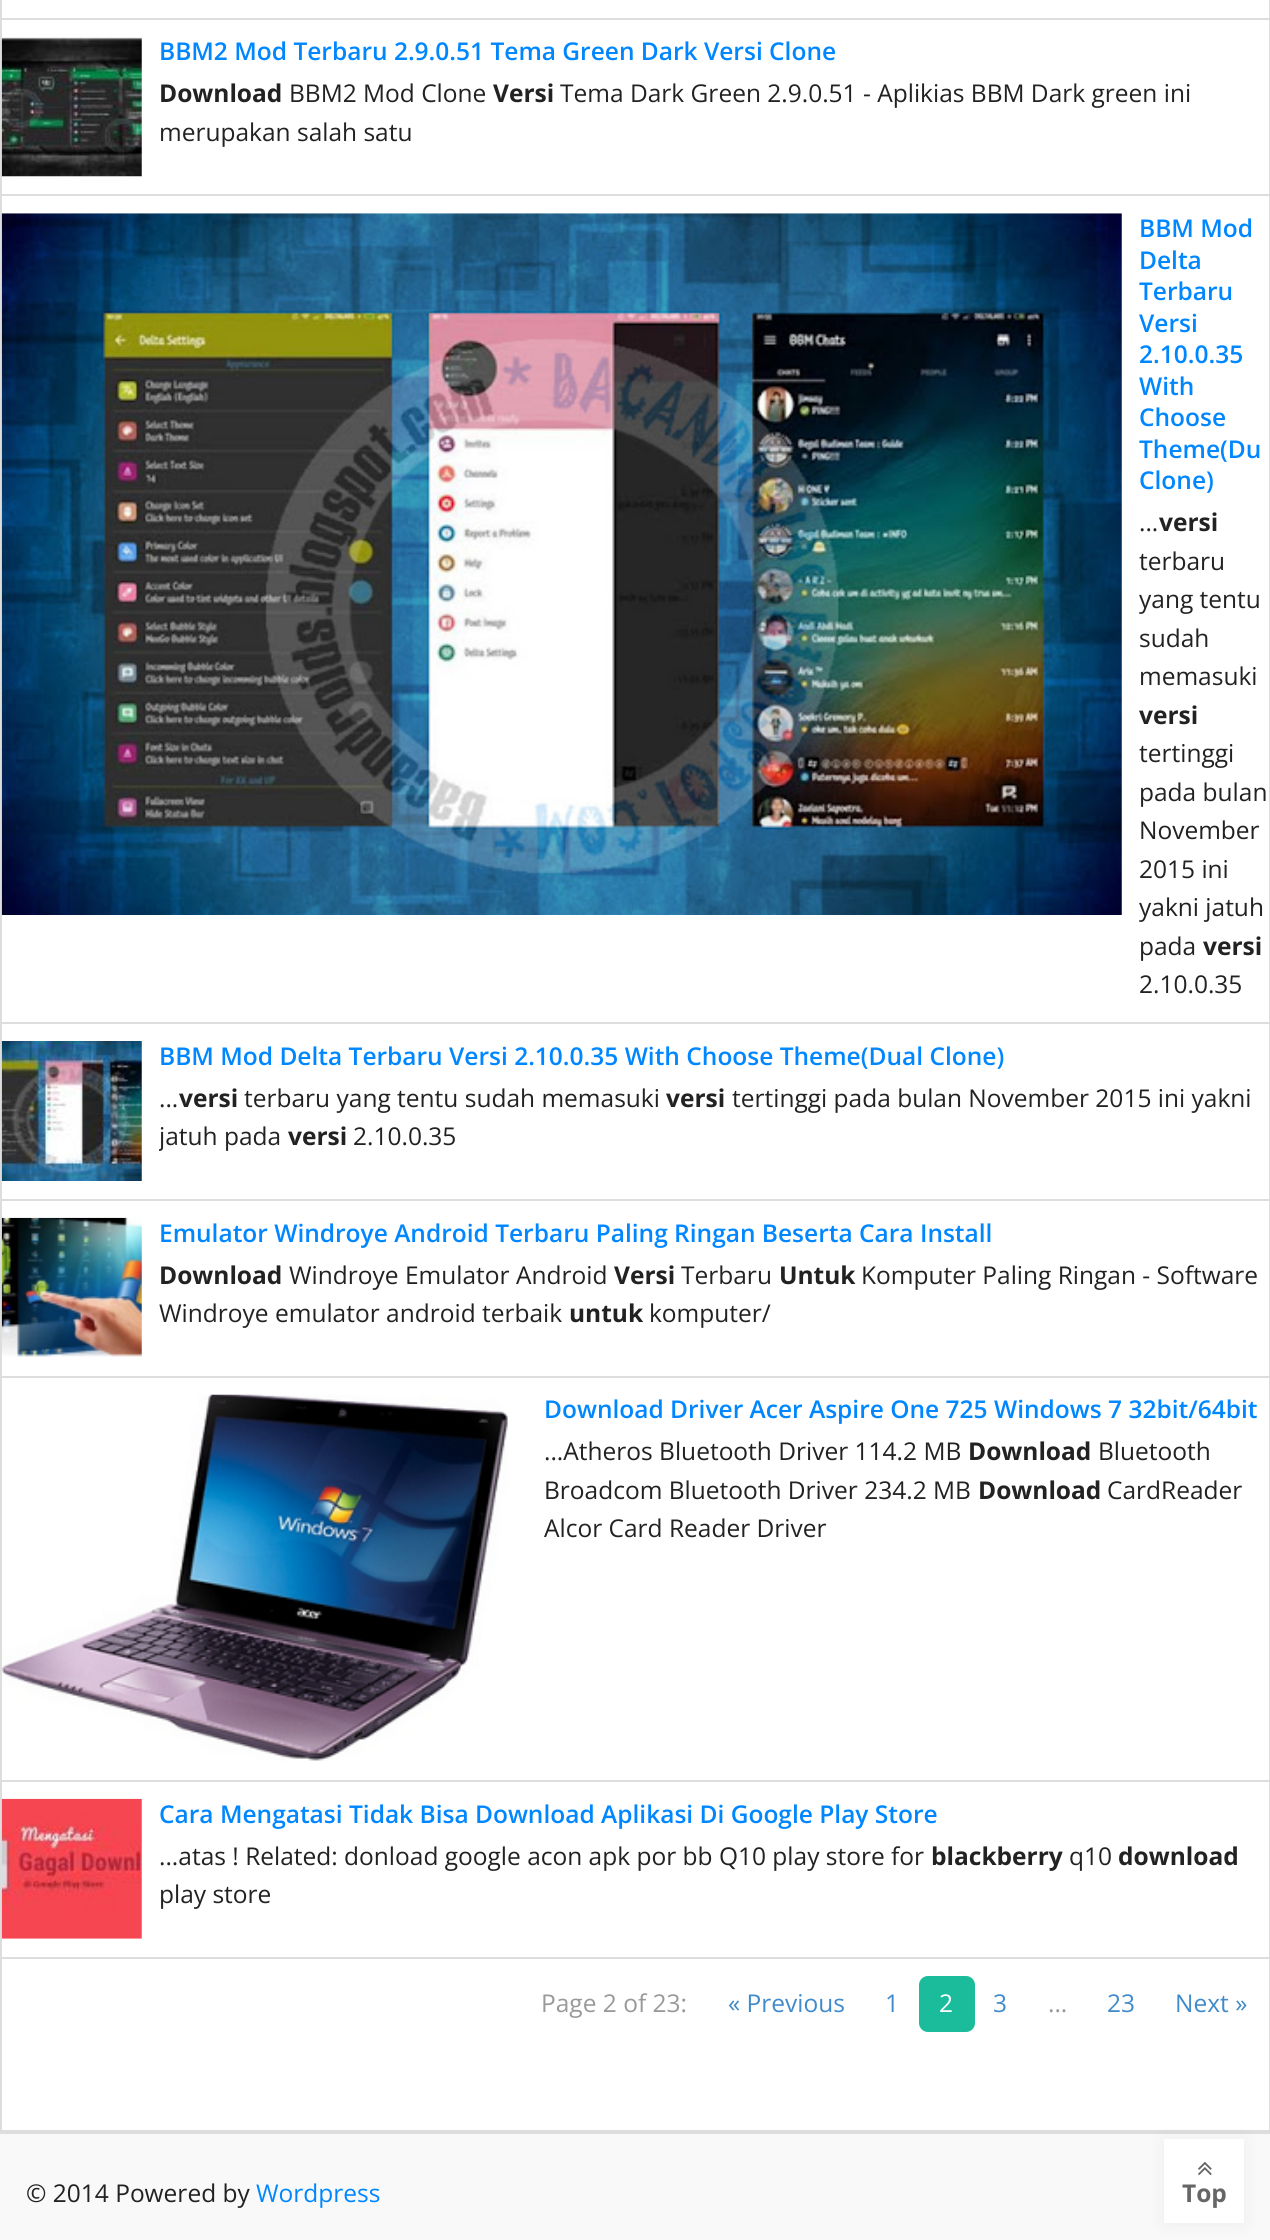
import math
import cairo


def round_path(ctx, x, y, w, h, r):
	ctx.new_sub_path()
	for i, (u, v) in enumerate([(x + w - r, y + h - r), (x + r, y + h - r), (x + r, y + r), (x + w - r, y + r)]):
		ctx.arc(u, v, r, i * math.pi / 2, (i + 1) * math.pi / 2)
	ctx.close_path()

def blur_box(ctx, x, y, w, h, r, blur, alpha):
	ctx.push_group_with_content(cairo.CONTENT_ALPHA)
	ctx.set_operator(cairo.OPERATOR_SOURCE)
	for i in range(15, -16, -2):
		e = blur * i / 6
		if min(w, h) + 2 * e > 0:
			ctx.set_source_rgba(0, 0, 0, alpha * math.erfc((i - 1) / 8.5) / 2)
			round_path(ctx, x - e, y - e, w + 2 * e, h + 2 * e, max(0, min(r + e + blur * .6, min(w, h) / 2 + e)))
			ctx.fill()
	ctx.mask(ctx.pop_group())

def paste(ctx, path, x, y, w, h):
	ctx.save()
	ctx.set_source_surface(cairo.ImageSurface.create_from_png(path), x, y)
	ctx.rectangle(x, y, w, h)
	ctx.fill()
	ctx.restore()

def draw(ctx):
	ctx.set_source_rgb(1, 1, 1)
	ctx.paint()
	ctx.rectangle(1, -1, 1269, 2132)
	ctx.set_source_rgb(0.867, 0.867, 0.867)
	ctx.stroke()
	ctx.rectangle(2, 18, 1267, 2)
	ctx.fill()
	ctx.rectangle(2, 194, 1267, 2)
	ctx.fill()
	paste(ctx, 'media/1.png', 1, 37, 141, 140)
	ctx.select_font_face('Open Sans SemiBold')
	ctx.set_font_size(24.5)
	ctx.set_source_rgb(0, 0.529, 1)
	ctx.move_to(159, 60)
	ctx.show_text('BBM2 Mod Terbaru 2.9.0.51 Tema Green Dark Versi Clone')
	ctx.select_font_face('Open Sans', cairo.FONT_SLANT_NORMAL, cairo.FONT_WEIGHT_BOLD)
	ctx.set_source_rgb(0.133, 0.133, 0.133)
	ctx.move_to(159, 102)
	ctx.show_text('Download')
	ctx.select_font_face('Open Sans')
	ctx.move_to(289, 102)
	ctx.show_text('BBM2 Mod Clone')
	ctx.select_font_face('Open Sans', cairo.FONT_SLANT_NORMAL, cairo.FONT_WEIGHT_BOLD)
	ctx.move_to(493, 102)
	ctx.show_text('Versi')
	ctx.select_font_face('Open Sans')
	ctx.move_to(560, 102)
	ctx.show_text('Tema Dark Green 2.9.0.51 - Aplikias BBM Dark green ini')
	ctx.move_to(159, 141)
	ctx.show_text('merupakan salah satu')
	ctx.set_source_rgb(0.867, 0.867, 0.867)
	ctx.rectangle(2, 1022, 1267, 2)
	ctx.fill()
	paste(ctx, 'media/2.png', 1, 213, 1121, 702)
	ctx.select_font_face('Open Sans SemiBold')
	ctx.set_source_rgb(0, 0.529, 1)
	for x, y, s in [
		(1139, 237, 'BBM Mod'),
		(1139, 269, 'Delta'),
		(1139, 300, 'Terbaru'),
		(1139, 332, 'Versi'),
		(1139, 363, '2.10.0.35'),
		(1139, 395, 'With'),
		(1139, 426, 'Choose'),
		(1139, 458, 'Theme(Du'),
		(1139, 489, 'Clone)'),
	]:
		ctx.move_to(x, y)
		ctx.show_text(s)
	ctx.select_font_face('Open Sans')
	ctx.set_source_rgb(0.133, 0.133, 0.133)
	ctx.move_to(1139, 531)
	ctx.show_text('...')
	ctx.select_font_face('Open Sans', cairo.FONT_SLANT_NORMAL, cairo.FONT_WEIGHT_BOLD)
	ctx.move_to(1159, 531)
	ctx.show_text('versi')
	ctx.select_font_face('Open Sans')
	for x, y, s in [
		(1139, 570, 'terbaru'),
		(1139, 608, 'yang tentu'),
		(1139, 647, 'sudah'),
		(1139, 685, 'memasuki'),
	]:
		ctx.move_to(x, y)
		ctx.show_text(s)
	ctx.select_font_face('Open Sans', cairo.FONT_SLANT_NORMAL, cairo.FONT_WEIGHT_BOLD)
	ctx.move_to(1139, 724)
	ctx.show_text('versi')
	ctx.select_font_face('Open Sans')
	for x, y, s in [
		(1139, 762, 'tertinggi'),
		(1139, 801, 'pada bulan'),
		(1139, 839, 'November'),
		(1139, 878, '2015 ini'),
		(1139, 916, 'yakni jatuh'),
		(1139, 955, 'pada'),
	]:
		ctx.move_to(x, y)
		ctx.show_text(s)
	ctx.select_font_face('Open Sans', cairo.FONT_SLANT_NORMAL, cairo.FONT_WEIGHT_BOLD)
	ctx.move_to(1203, 955)
	ctx.show_text('versi')
	ctx.select_font_face('Open Sans')
	ctx.move_to(1139, 993)
	ctx.show_text('2.10.0.35')
	ctx.set_source_rgb(0.867, 0.867, 0.867)
	ctx.rectangle(2, 1199, 1267, 2)
	ctx.fill()
	paste(ctx, 'media/3.png', 1, 1041, 141, 140)
	ctx.select_font_face('Open Sans SemiBold')
	ctx.set_source_rgb(0, 0.529, 1)
	ctx.move_to(159, 1065)
	ctx.show_text('BBM Mod Delta Terbaru Versi 2.10.0.35 With Choose Theme(Dual Clone)')
	ctx.select_font_face('Open Sans')
	ctx.set_source_rgb(0.133, 0.133, 0.133)
	ctx.move_to(159, 1107)
	ctx.show_text('...')
	ctx.select_font_face('Open Sans', cairo.FONT_SLANT_NORMAL, cairo.FONT_WEIGHT_BOLD)
	ctx.move_to(179, 1107)
	ctx.show_text('versi')
	ctx.select_font_face('Open Sans')
	ctx.move_to(244, 1107)
	ctx.show_text('terbaru yang tentu sudah memasuki')
	ctx.select_font_face('Open Sans', cairo.FONT_SLANT_NORMAL, cairo.FONT_WEIGHT_BOLD)
	ctx.move_to(666, 1107)
	ctx.show_text('versi')
	ctx.select_font_face('Open Sans')
	ctx.move_to(732, 1107)
	ctx.show_text('tertinggi pada bulan November 2015 ini yakni')
	ctx.save()
	ctx.rectangle(159, 1080, 1110, 77)
	ctx.clip()
	ctx.move_to(159, 1145)
	ctx.show_text('jatuh pada')
	ctx.restore()
	ctx.select_font_face('Open Sans', cairo.FONT_SLANT_NORMAL, cairo.FONT_WEIGHT_BOLD)
	ctx.move_to(288, 1145)
	ctx.show_text('versi')
	ctx.select_font_face('Open Sans')
	ctx.move_to(353, 1145)
	ctx.show_text('2.10.0.35')
	ctx.set_source_rgb(0.867, 0.867, 0.867)
	ctx.rectangle(2, 1376, 1267, 2)
	ctx.fill()
	paste(ctx, 'media/4.png', 1, 1217, 141, 140)
	ctx.select_font_face('Open Sans SemiBold')
	ctx.set_source_rgb(0, 0.529, 1)
	ctx.move_to(159, 1242)
	ctx.show_text('Emulator Windroye Android Terbaru Paling Ringan Beserta Cara Install')
	ctx.select_font_face('Open Sans', cairo.FONT_SLANT_NORMAL, cairo.FONT_WEIGHT_BOLD)
	ctx.set_source_rgb(0.133, 0.133, 0.133)
	ctx.move_to(159, 1284)
	ctx.show_text('Download')
	ctx.select_font_face('Open Sans')
	ctx.move_to(289, 1284)
	ctx.show_text('Windroye Emulator Android')
	ctx.select_font_face('Open Sans', cairo.FONT_SLANT_NORMAL, cairo.FONT_WEIGHT_BOLD)
	ctx.move_to(614, 1284)
	ctx.show_text('Versi')
	ctx.select_font_face('Open Sans')
	ctx.move_to(681, 1284)
	ctx.show_text('Terbaru')
	ctx.select_font_face('Open Sans', cairo.FONT_SLANT_NORMAL, cairo.FONT_WEIGHT_BOLD)
	ctx.move_to(779, 1284)
	ctx.show_text('Untuk')
	ctx.select_font_face('Open Sans')
	ctx.move_to(861, 1284)
	ctx.show_text('Komputer Paling Ringan - Software')
	ctx.move_to(159, 1322)
	ctx.show_text('Windroye emulator android terbaik')
	ctx.select_font_face('Open Sans', cairo.FONT_SLANT_NORMAL, cairo.FONT_WEIGHT_BOLD)
	ctx.move_to(569, 1322)
	ctx.show_text('untuk')
	ctx.select_font_face('Open Sans')
	ctx.move_to(649, 1322)
	ctx.show_text('komputer/')
	ctx.set_source_rgb(0.867, 0.867, 0.867)
	ctx.rectangle(2, 1780, 1267, 2)
	ctx.fill()
	paste(ctx, 'media/5.png', 2, 1394, 506, 367)
	ctx.select_font_face('Open Sans SemiBold')
	ctx.set_source_rgb(0, 0.529, 1)
	ctx.move_to(544, 1418)
	ctx.show_text('Download Driver Acer Aspire One 725 Windows 7 32bit/64bit')
	ctx.select_font_face('Open Sans')
	ctx.set_source_rgb(0.133, 0.133, 0.133)
	ctx.move_to(544, 1460)
	ctx.show_text('...Atheros Bluetooth Driver 114.2 MB')
	ctx.select_font_face('Open Sans', cairo.FONT_SLANT_NORMAL, cairo.FONT_WEIGHT_BOLD)
	ctx.move_to(968, 1460)
	ctx.show_text('Download')
	ctx.select_font_face('Open Sans')
	ctx.move_to(1098, 1460)
	ctx.show_text('Bluetooth')
	ctx.move_to(544, 1499)
	ctx.show_text('Broadcom Bluetooth Driver 234.2 MB')
	ctx.select_font_face('Open Sans', cairo.FONT_SLANT_NORMAL, cairo.FONT_WEIGHT_BOLD)
	ctx.move_to(978, 1499)
	ctx.show_text('Download')
	ctx.select_font_face('Open Sans')
	ctx.move_to(1107, 1499)
	ctx.show_text('CardReader')
	ctx.move_to(544, 1537)
	ctx.show_text('Alcor Card Reader Driver')
	ctx.set_source_rgb(0.867, 0.867, 0.867)
	ctx.rectangle(2, 1957, 1267, 2)
	ctx.fill()
	paste(ctx, 'media/6.png', 1, 1798, 141, 141)
	ctx.select_font_face('Open Sans SemiBold')
	ctx.set_source_rgb(0, 0.529, 1)
	ctx.move_to(159, 1823)
	ctx.show_text('Cara Mengatasi Tidak Bisa Download Aplikasi Di Google Play Store')
	ctx.select_font_face('Open Sans')
	ctx.set_source_rgb(0.133, 0.133, 0.133)
	ctx.move_to(159, 1865)
	ctx.show_text('...atas ! Related: donload google acon apk por bb Q10 play store for')
	ctx.select_font_face('Open Sans', cairo.FONT_SLANT_NORMAL, cairo.FONT_WEIGHT_BOLD)
	ctx.move_to(931, 1865)
	ctx.show_text('blackberry')
	ctx.select_font_face('Open Sans')
	ctx.move_to(1069, 1865)
	ctx.show_text('q10')
	ctx.select_font_face('Open Sans', cairo.FONT_SLANT_NORMAL, cairo.FONT_WEIGHT_BOLD)
	ctx.move_to(1118, 1865)
	ctx.show_text('download')
	ctx.select_font_face('Open Sans')
	ctx.move_to(159, 1903)
	ctx.show_text('play store')
	ctx.set_source_rgb(0.6, 0.6, 0.6)
	ctx.move_to(541, 2012)
	ctx.show_text('Page 2 of 23:')
	ctx.set_source_rgb(0.259, 0.545, 0.792)
	ctx.move_to(728, 2012)
	ctx.show_text('« Previous')
	ctx.move_to(885, 2012)
	ctx.show_text('1')
	ctx.set_source_rgb(0.102, 0.737, 0.612)
	round_path(ctx, 919, 1976, 56, 56, 9)
	ctx.fill()
	ctx.set_source_rgb(1, 1, 1)
	ctx.move_to(939, 2012)
	ctx.show_text('2')
	ctx.set_source_rgb(0.259, 0.545, 0.792)
	ctx.move_to(993, 2012)
	ctx.show_text('3')
	ctx.set_source_rgb(0.6, 0.6, 0.6)
	ctx.move_to(1048, 2012)
	ctx.show_text('...')
	ctx.set_source_rgb(0.259, 0.545, 0.792)
	ctx.move_to(1107, 2012)
	ctx.show_text('23')
	ctx.move_to(1175, 2012)
	ctx.show_text('Next »')
	ctx.set_source_rgb(0.973, 0.973, 0.973)
	ctx.rectangle(0, 2134, 1270, 106)
	ctx.fill()
	ctx.set_source_rgb(0.867, 0.867, 0.867)
	ctx.rectangle(0, 2132, 1270, 2)
	ctx.fill()
	ctx.set_source_rgb(0.133, 0.133, 0.133)
	ctx.move_to(26, 2202)
	ctx.show_text('© 2014 Powered by')
	ctx.set_source_rgb(0, 0.529, 1)
	ctx.move_to(256, 2202)
	ctx.show_text('Wordpress')
	ctx.set_source_rgb(0, 0, 0)
	blur_box(ctx, 1164, 2140, 80, 84, 0, 9, 0.05)
	ctx.set_source_rgb(1, 1, 1)
	ctx.rectangle(1164, 2139, 80, 84)
	ctx.fill()
	paste(ctx, 'media/7.png', 1198, 2161, 14, 14)
	ctx.select_font_face('Open Sans', cairo.FONT_SLANT_NORMAL, cairo.FONT_WEIGHT_BOLD)
	ctx.set_source_rgb(0.4, 0.4, 0.4)
	ctx.move_to(1182, 2202)
	ctx.show_text('Top')


surface = cairo.ImageSurface(cairo.FORMAT_RGB24, 1270, 2240)
ctx = cairo.Context(surface)
options = cairo.FontOptions()
options.set_hint_metrics(cairo.HINT_METRICS_OFF)
options.set_hint_style(cairo.HINT_STYLE_NONE)
ctx.set_font_options(options)
ctx.set_miter_limit(4)
draw(ctx)
surface.write_to_png('image.png')
